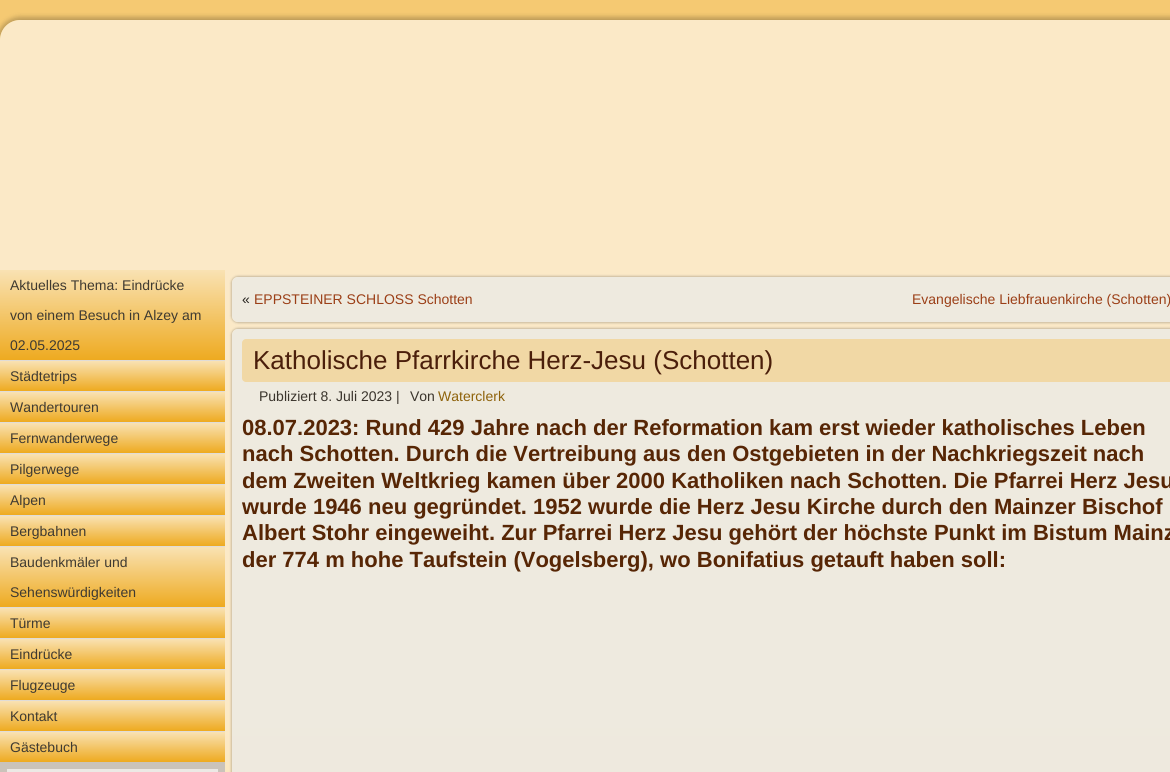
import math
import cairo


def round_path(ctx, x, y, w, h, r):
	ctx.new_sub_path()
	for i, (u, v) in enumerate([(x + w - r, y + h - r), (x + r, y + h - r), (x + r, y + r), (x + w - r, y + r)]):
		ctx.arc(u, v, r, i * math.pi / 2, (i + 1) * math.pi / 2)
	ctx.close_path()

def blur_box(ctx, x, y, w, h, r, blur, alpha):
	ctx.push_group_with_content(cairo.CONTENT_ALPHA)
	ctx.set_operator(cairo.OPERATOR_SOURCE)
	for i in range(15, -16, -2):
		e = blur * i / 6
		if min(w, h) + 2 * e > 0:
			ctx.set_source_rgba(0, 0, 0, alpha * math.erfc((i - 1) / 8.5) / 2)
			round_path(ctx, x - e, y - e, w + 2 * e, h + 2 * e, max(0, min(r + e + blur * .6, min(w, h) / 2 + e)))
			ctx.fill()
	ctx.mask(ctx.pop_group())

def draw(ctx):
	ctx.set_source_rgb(1, 1, 1)
	ctx.paint()
	gradient = cairo.LinearGradient(600, 0, 600, 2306)
	gradient.add_color_stop_rgba(0, 0.957, 0.78, 0.424, 1)
	gradient.add_color_stop_rgba(0.31, 0.957, 0.78, 0.424, 1)
	gradient.add_color_stop_rgba(0.52, 0.929, 0.643, 0.071, 1)
	ctx.set_source(gradient)
	ctx.rectangle(0, 0, 1170, 772)
	ctx.fill()
	gradient = cairo.LinearGradient(600, 0, 600, 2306)
	gradient.add_color_stop_rgba(0, 0.965, 0.812, 0.51, 0.25)
	gradient.add_color_stop_rgba(0.31, 0.965, 0.812, 0.51, 0.25)
	gradient.add_color_stop_rgba(0.52, 0.843, 0.58, 0.063, 0.18)
	ctx.set_source(gradient)
	ctx.rectangle(0, 0, 1170, 772)
	ctx.fill()
	ctx.save()
	ctx.set_fill_rule(cairo.FILL_RULE_EVEN_ODD)
	ctx.new_path()
	ctx.move_to(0, 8)
	ctx.line_to(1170, 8)
	ctx.line_to(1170, 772)
	ctx.line_to(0, 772)
	ctx.close_path()
	ctx.move_to(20, 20)
	ctx.line_to(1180, 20)
	ctx.curve_to(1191, 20, 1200, 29, 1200, 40)
	ctx.line_to(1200, 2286)
	ctx.curve_to(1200, 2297, 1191, 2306, 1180, 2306)
	ctx.line_to(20, 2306)
	ctx.curve_to(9, 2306, 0, 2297, 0, 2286)
	ctx.line_to(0, 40)
	ctx.curve_to(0, 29, 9, 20, 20, 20)
	ctx.close_path()
	ctx.clip()
	ctx.set_source_rgb(0, 0, 0)
	blur_box(ctx, -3, 17, 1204, 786, 23, 2.5, 0.24)
	ctx.restore()
	ctx.set_source_rgba(1, 1, 1, 0.6)
	round_path(ctx, 0, 20, 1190, 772, 20)
	ctx.fill()
	ctx.set_source_rgb(0.792, 0.765, 0.729)
	ctx.rectangle(0, 762, 225, 10)
	ctx.fill()
	gradient = cairo.LinearGradient(113, 270, 113, 360)
	gradient.add_color_stop_rgba(0, 0.976, 0.886, 0.702, 1)
	gradient.add_color_stop_rgba(1, 0.933, 0.667, 0.125, 1)
	ctx.set_source(gradient)
	ctx.rectangle(0, 270, 225, 90)
	ctx.fill()
	ctx.select_font_face('Liberation Sans')
	ctx.set_font_size(14)
	ctx.set_source_rgb(0.247, 0.227, 0.192)
	for x, y, s in [
		(10, 290, 'Aktuelles Thema: Eindrücke'),
		(10, 320, 'von einem Besuch in Alzey am'),
		(10, 350, '02.05.2025'),
	]:
		ctx.move_to(x, y)
		ctx.show_text(s)
	ctx.set_source_rgb(0.878, 0.863, 0.843)
	ctx.rectangle(0, 360, 225, 1)
	ctx.fill()
	gradient = cairo.LinearGradient(113, 361, 113, 391)
	gradient.add_color_stop_rgba(0, 0.976, 0.886, 0.702, 1)
	gradient.add_color_stop_rgba(1, 0.933, 0.667, 0.125, 1)
	ctx.set_source(gradient)
	ctx.rectangle(0, 361, 225, 30)
	ctx.fill()
	ctx.set_source_rgb(0.247, 0.227, 0.192)
	ctx.move_to(10, 381)
	ctx.show_text('Städtetrips')
	ctx.set_source_rgb(0.878, 0.863, 0.843)
	ctx.rectangle(0, 391, 225, 1)
	ctx.fill()
	gradient = cairo.LinearGradient(113, 392, 113, 422)
	gradient.add_color_stop_rgba(0, 0.976, 0.886, 0.702, 1)
	gradient.add_color_stop_rgba(1, 0.933, 0.667, 0.125, 1)
	ctx.set_source(gradient)
	ctx.rectangle(0, 392, 225, 30)
	ctx.fill()
	ctx.set_source_rgb(0.247, 0.227, 0.192)
	ctx.move_to(10, 412)
	ctx.show_text('Wandertouren')
	ctx.set_source_rgb(0.878, 0.863, 0.843)
	ctx.rectangle(0, 422, 225, 1)
	ctx.fill()
	gradient = cairo.LinearGradient(113, 423, 113, 453)
	gradient.add_color_stop_rgba(0, 0.976, 0.886, 0.702, 1)
	gradient.add_color_stop_rgba(1, 0.933, 0.667, 0.125, 1)
	ctx.set_source(gradient)
	ctx.rectangle(0, 423, 225, 30)
	ctx.fill()
	ctx.set_source_rgb(0.247, 0.227, 0.192)
	ctx.move_to(10, 443)
	ctx.show_text('Fernwanderwege')
	ctx.set_source_rgb(0.878, 0.863, 0.843)
	ctx.rectangle(0, 453, 225, 1)
	ctx.fill()
	gradient = cairo.LinearGradient(113, 454, 113, 484)
	gradient.add_color_stop_rgba(0, 0.976, 0.886, 0.702, 1)
	gradient.add_color_stop_rgba(1, 0.933, 0.667, 0.125, 1)
	ctx.set_source(gradient)
	ctx.rectangle(0, 454, 225, 30)
	ctx.fill()
	ctx.set_source_rgb(0.247, 0.227, 0.192)
	ctx.move_to(10, 474)
	ctx.show_text('Pilgerwege')
	ctx.set_source_rgb(0.878, 0.863, 0.843)
	ctx.rectangle(0, 484, 225, 1)
	ctx.fill()
	gradient = cairo.LinearGradient(113, 485, 113, 515)
	gradient.add_color_stop_rgba(0, 0.976, 0.886, 0.702, 1)
	gradient.add_color_stop_rgba(1, 0.933, 0.667, 0.125, 1)
	ctx.set_source(gradient)
	ctx.rectangle(0, 485, 225, 30)
	ctx.fill()
	ctx.set_source_rgb(0.247, 0.227, 0.192)
	ctx.move_to(10, 505)
	ctx.show_text('Alpen')
	ctx.set_source_rgb(0.878, 0.863, 0.843)
	ctx.rectangle(0, 515, 225, 1)
	ctx.fill()
	gradient = cairo.LinearGradient(113, 516, 113, 546)
	gradient.add_color_stop_rgba(0, 0.976, 0.886, 0.702, 1)
	gradient.add_color_stop_rgba(1, 0.933, 0.667, 0.125, 1)
	ctx.set_source(gradient)
	ctx.rectangle(0, 516, 225, 30)
	ctx.fill()
	ctx.set_source_rgb(0.247, 0.227, 0.192)
	ctx.move_to(10, 536)
	ctx.show_text('Bergbahnen')
	ctx.set_source_rgb(0.878, 0.863, 0.843)
	ctx.rectangle(0, 546, 225, 1)
	ctx.fill()
	gradient = cairo.LinearGradient(113, 547, 113, 607)
	gradient.add_color_stop_rgba(0, 0.976, 0.886, 0.702, 1)
	gradient.add_color_stop_rgba(1, 0.933, 0.667, 0.125, 1)
	ctx.set_source(gradient)
	ctx.rectangle(0, 547, 225, 60)
	ctx.fill()
	ctx.set_source_rgb(0.247, 0.227, 0.192)
	ctx.move_to(10, 567)
	ctx.show_text('Baudenkmäler und')
	ctx.move_to(10, 597)
	ctx.show_text('Sehenswürdigkeiten')
	ctx.set_source_rgb(0.878, 0.863, 0.843)
	ctx.rectangle(0, 607, 225, 1)
	ctx.fill()
	gradient = cairo.LinearGradient(113, 608, 113, 638)
	gradient.add_color_stop_rgba(0, 0.976, 0.886, 0.702, 1)
	gradient.add_color_stop_rgba(1, 0.933, 0.667, 0.125, 1)
	ctx.set_source(gradient)
	ctx.rectangle(0, 608, 225, 30)
	ctx.fill()
	ctx.set_source_rgb(0.247, 0.227, 0.192)
	ctx.move_to(10, 628)
	ctx.show_text('Türme')
	ctx.set_source_rgb(0.878, 0.863, 0.843)
	ctx.rectangle(0, 638, 225, 1)
	ctx.fill()
	gradient = cairo.LinearGradient(113, 639, 113, 669)
	gradient.add_color_stop_rgba(0, 0.976, 0.886, 0.702, 1)
	gradient.add_color_stop_rgba(1, 0.933, 0.667, 0.125, 1)
	ctx.set_source(gradient)
	ctx.rectangle(0, 639, 225, 30)
	ctx.fill()
	ctx.set_source_rgb(0.247, 0.227, 0.192)
	ctx.move_to(10, 659)
	ctx.show_text('Eindrücke')
	ctx.set_source_rgb(0.878, 0.863, 0.843)
	ctx.rectangle(0, 669, 225, 1)
	ctx.fill()
	gradient = cairo.LinearGradient(113, 670, 113, 700)
	gradient.add_color_stop_rgba(0, 0.976, 0.886, 0.702, 1)
	gradient.add_color_stop_rgba(1, 0.933, 0.667, 0.125, 1)
	ctx.set_source(gradient)
	ctx.rectangle(0, 670, 225, 30)
	ctx.fill()
	ctx.set_source_rgb(0.247, 0.227, 0.192)
	ctx.move_to(10, 690)
	ctx.show_text('Flugzeuge')
	ctx.set_source_rgb(0.878, 0.863, 0.843)
	ctx.rectangle(0, 700, 225, 1)
	ctx.fill()
	gradient = cairo.LinearGradient(113, 701, 113, 731)
	gradient.add_color_stop_rgba(0, 0.976, 0.886, 0.702, 1)
	gradient.add_color_stop_rgba(1, 0.933, 0.667, 0.125, 1)
	ctx.set_source(gradient)
	ctx.rectangle(0, 701, 225, 30)
	ctx.fill()
	ctx.set_source_rgb(0.247, 0.227, 0.192)
	ctx.move_to(10, 721)
	ctx.show_text('Kontakt')
	ctx.set_source_rgb(0.878, 0.863, 0.843)
	ctx.rectangle(0, 731, 225, 1)
	ctx.fill()
	gradient = cairo.LinearGradient(113, 732, 113, 762)
	gradient.add_color_stop_rgba(0, 0.976, 0.886, 0.702, 1)
	gradient.add_color_stop_rgba(1, 0.933, 0.667, 0.125, 1)
	ctx.set_source(gradient)
	ctx.rectangle(0, 732, 225, 30)
	ctx.fill()
	ctx.set_source_rgb(0.247, 0.227, 0.192)
	ctx.move_to(10, 752)
	ctx.show_text('Gästebuch')
	ctx.set_source_rgb(0.922, 0.914, 0.898)
	ctx.rectangle(7, 769, 211, 3)
	ctx.fill()
	ctx.save()
	ctx.set_fill_rule(cairo.FILL_RULE_EVEN_ODD)
	ctx.new_path()
	ctx.move_to(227, 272)
	ctx.line_to(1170, 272)
	ctx.line_to(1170, 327)
	ctx.line_to(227, 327)
	ctx.close_path()
	ctx.move_to(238, 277)
	ctx.line_to(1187, 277)
	ctx.curve_to(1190.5, 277, 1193, 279.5, 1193, 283)
	ctx.line_to(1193, 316)
	ctx.curve_to(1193, 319.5, 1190.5, 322, 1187, 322)
	ctx.line_to(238, 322)
	ctx.curve_to(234.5, 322, 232, 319.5, 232, 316)
	ctx.line_to(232, 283)
	ctx.curve_to(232, 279.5, 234.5, 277, 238, 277)
	ctx.close_path()
	ctx.clip()
	ctx.set_source_rgb(0, 0, 0)
	blur_box(ctx, 231, 276, 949, 47, 7, 1, 0.2)
	ctx.restore()
	ctx.set_source_rgba(0.922, 0.914, 0.898, 0.8)
	round_path(ctx, 232, 277, 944, 45, 6)
	ctx.fill()
	ctx.set_source_rgb(0.145, 0.133, 0.114)
	ctx.move_to(242, 304)
	ctx.show_text('«')
	ctx.set_source_rgb(0.608, 0.247, 0.09)
	ctx.move_to(254, 304)
	ctx.show_text('EPPSTEINER SCHLOSS Schotten')
	ctx.move_to(912, 304)
	ctx.show_text('Evangelische Liebfrauenkirche (Schotten)')
	ctx.save()
	ctx.set_fill_rule(cairo.FILL_RULE_EVEN_ODD)
	ctx.new_path()
	ctx.move_to(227, 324)
	ctx.line_to(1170, 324)
	ctx.line_to(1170, 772)
	ctx.line_to(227, 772)
	ctx.close_path()
	ctx.move_to(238, 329)
	ctx.line_to(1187, 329)
	ctx.curve_to(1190.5, 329, 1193, 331.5, 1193, 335)
	ctx.line_to(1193, 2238)
	ctx.curve_to(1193, 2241.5, 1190.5, 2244, 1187, 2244)
	ctx.line_to(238, 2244)
	ctx.curve_to(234.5, 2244, 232, 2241.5, 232, 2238)
	ctx.line_to(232, 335)
	ctx.curve_to(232, 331.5, 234.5, 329, 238, 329)
	ctx.close_path()
	ctx.clip()
	ctx.set_source_rgb(0, 0, 0)
	blur_box(ctx, 231, 328, 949, 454, 7, 1, 0.2)
	ctx.restore()
	ctx.set_source_rgba(0.922, 0.914, 0.898, 0.8)
	round_path(ctx, 232, 329, 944, 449, 6)
	ctx.fill()
	ctx.set_source_rgb(0.945, 0.847, 0.647)
	round_path(ctx, 242, 339, 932, 43, 4)
	ctx.fill()
	ctx.set_font_size(26)
	ctx.set_source_rgb(0.294, 0.122, 0.043)
	ctx.move_to(253, 369)
	ctx.show_text('Katholische Pfarrkirche Herz-Jesu (Schotten)')
	ctx.set_font_size(14)
	ctx.set_source_rgb(0.227, 0.204, 0.173)
	ctx.move_to(259, 401)
	ctx.show_text('Publiziert 8. Juli 2023 |')
	ctx.move_to(410, 401)
	ctx.show_text('Von')
	ctx.set_source_rgb(0.557, 0.384, 0.043)
	ctx.move_to(438, 401)
	ctx.show_text('Waterclerk')
	ctx.select_font_face('Liberation Sans', cairo.FONT_SLANT_NORMAL, cairo.FONT_WEIGHT_BOLD)
	ctx.set_font_size(22)
	ctx.set_source_rgb(0.341, 0.149, 0.02)
	for x, y, s in [
		(242, 435, '08.07.2023: Rund 429 Jahre nach der Reformation kam erst wieder katholisches Leben'),
		(242, 461, 'nach Schotten. Durch die Vertreibung aus den Ostgebieten in der Nachkriegszeit nach'),
		(242, 488, 'dem Zweiten Weltkrieg kamen über 2000 Katholiken nach Schotten. Die Pfarrei Herz Jesu'),
		(242, 514, 'wurde 1946 neu gegründet. 1952 wurde die Herz Jesu Kirche durch den Mainzer Bischof'),
		(242, 540, 'Albert Stohr eingeweiht. Zur Pfarrei Herz Jesu gehört der höchste Punkt im Bistum Mainz'),
		(242, 567, 'der 774 m hohe Taufstein (Vogelsberg), wo Bonifatius getauft haben soll:'),
	]:
		ctx.move_to(x, y)
		ctx.show_text(s)


surface = cairo.ImageSurface(cairo.FORMAT_RGB24, 1170, 772)
ctx = cairo.Context(surface)
options = cairo.FontOptions()
options.set_hint_metrics(cairo.HINT_METRICS_OFF)
options.set_hint_style(cairo.HINT_STYLE_NONE)
ctx.set_font_options(options)
ctx.set_miter_limit(4)
draw(ctx)
surface.write_to_png('image.png')
